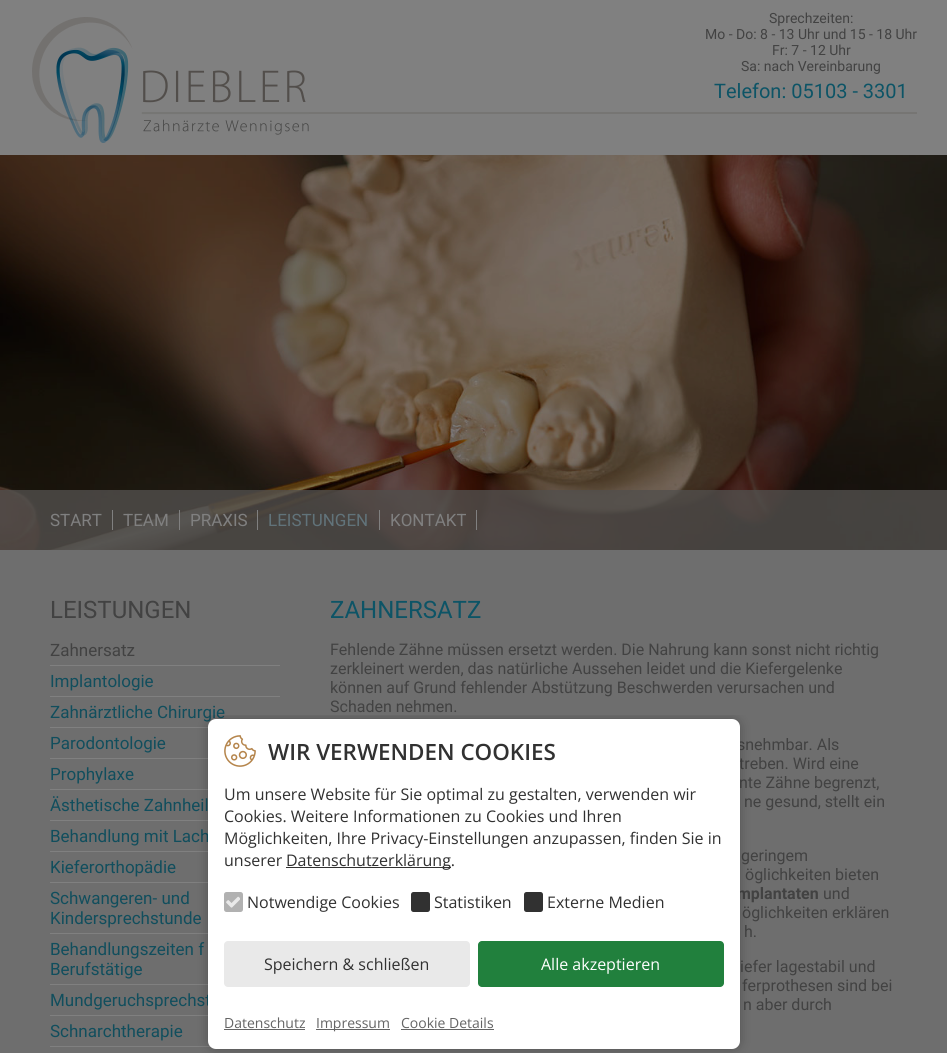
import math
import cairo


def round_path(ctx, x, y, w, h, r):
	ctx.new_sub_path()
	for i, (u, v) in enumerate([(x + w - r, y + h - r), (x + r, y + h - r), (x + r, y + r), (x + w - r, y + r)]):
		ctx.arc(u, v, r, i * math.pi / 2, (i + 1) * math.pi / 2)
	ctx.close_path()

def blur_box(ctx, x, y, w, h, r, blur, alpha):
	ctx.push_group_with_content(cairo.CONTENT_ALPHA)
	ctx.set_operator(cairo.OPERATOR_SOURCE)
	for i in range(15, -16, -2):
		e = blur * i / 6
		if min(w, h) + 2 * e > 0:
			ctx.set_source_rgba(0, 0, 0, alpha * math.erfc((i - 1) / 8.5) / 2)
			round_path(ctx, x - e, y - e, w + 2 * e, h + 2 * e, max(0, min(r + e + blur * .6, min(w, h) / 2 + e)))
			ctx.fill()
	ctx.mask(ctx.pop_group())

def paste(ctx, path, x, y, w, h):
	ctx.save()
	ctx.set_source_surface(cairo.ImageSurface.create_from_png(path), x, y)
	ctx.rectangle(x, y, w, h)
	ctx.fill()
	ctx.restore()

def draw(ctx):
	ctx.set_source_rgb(0.502, 0.502, 0.502)
	ctx.paint()
	paste(ctx, 'media/1.png', 32, 17, 277, 126)
	ctx.select_font_face('Roboto')
	ctx.set_font_size(14)
	ctx.set_source_rgb(0.259, 0.259, 0.259)
	for x, y, s in [
		(769, 23, 'Sprechzeiten:'),
		(705, 39, 'Mo - Do: 8 - 13 Uhr und 15 - 18 Uhr'),
		(772, 55, 'Fr: 7 - 12 Uhr'),
		(741, 71, 'Sa: nach Vereinbarung'),
	]:
		ctx.move_to(x, y)
		ctx.show_text(s)
	ctx.set_font_size(20)
	ctx.set_source_rgb(0.051, 0.329, 0.4)
	ctx.move_to(714, 98)
	ctx.show_text('Telefon: 05103 - 3301')
	ctx.set_source_rgb(0.463, 0.459, 0.451)
	ctx.rectangle(309, 112, 608, 2)
	ctx.fill()
	paste(ctx, 'media/2.png', 0, 155, 947, 395)
	ctx.set_source_rgba(0.318, 0.31, 0.302, 0.8)
	ctx.rectangle(0, 490, 947, 60)
	ctx.fill()
	ctx.set_source_rgb(0.502, 0.502, 0.502)
	ctx.rectangle(112, 510, 1, 20)
	ctx.fill()
	ctx.set_font_size(17)
	ctx.move_to(50, 526)
	ctx.show_text('START')
	ctx.rectangle(179, 510, 1, 20)
	ctx.fill()
	ctx.move_to(123, 526)
	ctx.show_text('TEAM')
	ctx.rectangle(257, 510, 1, 20)
	ctx.fill()
	ctx.move_to(190, 526)
	ctx.show_text('PRAXIS')
	ctx.rectangle(379, 510, 1, 20)
	ctx.fill()
	ctx.set_source_rgb(0.38, 0.451, 0.478)
	ctx.move_to(268, 526)
	ctx.show_text('LEISTUNGEN')
	ctx.set_source_rgb(0.502, 0.502, 0.502)
	ctx.rectangle(476, 510, 1, 20)
	ctx.fill()
	ctx.move_to(390, 526)
	ctx.show_text('KONTAKT')
	ctx.set_source_rgb(0.431, 0.431, 0.431)
	ctx.rectangle(0, 550, 947, 503)
	ctx.fill()
	ctx.set_font_size(24)
	ctx.set_source_rgb(0.259, 0.259, 0.259)
	ctx.move_to(50, 618)
	ctx.show_text('LEISTUNGEN')
	ctx.set_source_rgb(0.502, 0.502, 0.502)
	ctx.rectangle(50, 665, 230, 1)
	ctx.fill()
	ctx.set_font_size(17)
	ctx.set_source_rgb(0.259, 0.259, 0.259)
	ctx.move_to(50, 656)
	ctx.show_text('Zahnersatz')
	ctx.set_source_rgb(0.502, 0.502, 0.502)
	ctx.rectangle(50, 696, 230, 1)
	ctx.fill()
	ctx.set_source_rgb(0.067, 0.306, 0.365)
	ctx.move_to(50, 687)
	ctx.show_text('Implantologie')
	ctx.set_source_rgb(0.502, 0.502, 0.502)
	ctx.rectangle(50, 727, 158, 1)
	ctx.fill()
	ctx.set_source_rgb(0.067, 0.306, 0.365)
	ctx.move_to(50, 718)
	ctx.show_text('Zahnärztliche Chirurgie')
	ctx.set_source_rgb(0.502, 0.502, 0.502)
	ctx.rectangle(50, 758, 158, 1)
	ctx.fill()
	ctx.set_source_rgb(0.067, 0.306, 0.365)
	ctx.move_to(50, 749)
	ctx.show_text('Parodontologie')
	ctx.set_source_rgb(0.502, 0.502, 0.502)
	ctx.rectangle(50, 789, 158, 1)
	ctx.fill()
	ctx.set_source_rgb(0.067, 0.306, 0.365)
	ctx.move_to(50, 780)
	ctx.show_text('Prophylaxe')
	ctx.set_source_rgb(0.502, 0.502, 0.502)
	ctx.rectangle(50, 820, 158, 1)
	ctx.fill()
	ctx.set_source_rgb(0.067, 0.306, 0.365)
	ctx.move_to(50, 811)
	ctx.show_text('Ästhetische Zahnheil')
	ctx.set_source_rgb(0.502, 0.502, 0.502)
	ctx.rectangle(50, 851, 158, 1)
	ctx.fill()
	ctx.set_source_rgb(0.067, 0.306, 0.365)
	ctx.move_to(50, 842)
	ctx.show_text('Behandlung mit Lach')
	ctx.set_source_rgb(0.502, 0.502, 0.502)
	ctx.rectangle(50, 882, 158, 1)
	ctx.fill()
	ctx.set_source_rgb(0.067, 0.306, 0.365)
	ctx.move_to(50, 873)
	ctx.show_text('Kieferorthopädie')
	ctx.set_source_rgb(0.502, 0.502, 0.502)
	ctx.rectangle(50, 933, 158, 1)
	ctx.fill()
	ctx.set_source_rgb(0.067, 0.306, 0.365)
	ctx.move_to(50, 904)
	ctx.show_text('Schwangeren- und')
	ctx.move_to(50, 924)
	ctx.show_text('Kindersprechstunde')
	ctx.set_source_rgb(0.502, 0.502, 0.502)
	ctx.rectangle(50, 984, 158, 1)
	ctx.fill()
	ctx.set_source_rgb(0.067, 0.306, 0.365)
	ctx.move_to(50, 955)
	ctx.show_text('Behandlungszeiten f')
	ctx.move_to(50, 975)
	ctx.show_text('Berufstätige')
	ctx.set_source_rgb(0.502, 0.502, 0.502)
	ctx.rectangle(50, 1015, 158, 1)
	ctx.fill()
	ctx.set_source_rgb(0.067, 0.306, 0.365)
	ctx.move_to(50, 1006)
	ctx.show_text('Mundgeruchsprechst')
	ctx.set_source_rgb(0.502, 0.502, 0.502)
	ctx.rectangle(50, 1046, 161, 1)
	ctx.fill()
	ctx.set_source_rgb(0.067, 0.306, 0.365)
	ctx.move_to(50, 1037)
	ctx.show_text('Schnarchtherapie')
	ctx.set_font_size(24)
	ctx.set_source_rgb(0.051, 0.329, 0.4)
	ctx.move_to(330, 618)
	ctx.show_text('ZAHNERSATZ')
	ctx.set_font_size(16)
	ctx.set_source_rgb(0.259, 0.259, 0.259)
	for x, y, s in [
		(330, 655, 'Fehlende Zähne müssen ersetzt werden. Die Nahrung kann sonst nicht richtig'),
		(330, 674, 'zerkleinert werden, das natürliche Aussehen leidet und die Kiefergelenke'),
		(330, 693, 'können auf Grund fehlender Abstützung Beschwerden verursachen und'),
		(330, 712, 'Schaden nehmen.'),
		(737, 750, 'snehmbar. Als'),
		(739, 769, 'treben. Wird eine'),
		(739, 788, 'nte Zähne begrenzt,'),
		(744, 807, 'ne gesund, stellt ein'),
		(741, 861, 'geringem'),
		(745, 880, 'öglichkeiten bieten'),
	]:
		ctx.move_to(x, y)
		ctx.show_text(s)
	ctx.select_font_face('Roboto', cairo.FONT_SLANT_NORMAL, cairo.FONT_WEIGHT_BOLD)
	ctx.move_to(737, 899)
	ctx.show_text('mplantaten')
	ctx.select_font_face('Roboto')
	for x, y, s in [
		(823, 899, 'und'),
		(742, 918, 'öglichkeiten erklären'),
		(744, 937, 'h.'),
		(740, 972, 'iefer lagestabil und'),
		(742, 991, 'ferprothesen sind bei'),
		(743, 1010, 'n aber durch'),
	]:
		ctx.move_to(x, y)
		ctx.show_text(s)
	ctx.save()
	ctx.rectangle(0, 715, 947, 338)
	ctx.clip()
	ctx.set_source_rgb(0, 0, 0)
	blur_box(ctx, 208, 719, 532, 330, 8, 6, 0.25)
	ctx.restore()
	ctx.set_source_rgb(1, 1, 1)
	round_path(ctx, 208, 719, 532, 330, 8)
	ctx.fill()
	paste(ctx, 'media/3.png', 224, 735, 32, 32)
	ctx.select_font_face('Open Sans SemiBold')
	ctx.set_font_size(22.4)
	ctx.set_source_rgb(0.192, 0.192, 0.192)
	ctx.move_to(268, 760)
	ctx.show_text('WIR VERWENDEN COOKIES')
	ctx.select_font_face('Open Sans')
	ctx.set_font_size(16)
	for x, y, s in [
		(224, 800, 'Um unsere Website für Sie optimal zu gestalten, verwenden wir'),
		(224, 822, 'Cookies. Weitere Informationen zu Cookies und Ihren'),
		(224, 844, 'Möglichkeiten, Ihre Privacy-Einstellungen anzupassen, finden Sie in'),
		(224, 866, 'unserer'),
	]:
		ctx.move_to(x, y)
		ctx.show_text(s)
	ctx.rectangle(286, 867, 165, 1)
	ctx.fill()
	ctx.move_to(286, 866)
	ctx.show_text('Datenschutzerklärung.')
	ctx.set_source_rgb(0.694, 0.694, 0.694)
	round_path(ctx, 224, 892, 19, 20, 2.5)
	ctx.fill()
	paste(ctx, 'media/4.png', 226, 896, 14, 12)
	ctx.set_source_rgb(0.192, 0.192, 0.192)
	ctx.move_to(247, 908)
	ctx.show_text('Notwendige Cookies')
	round_path(ctx, 411, 892, 19, 20, 2.5)
	ctx.fill()
	ctx.move_to(434, 908)
	ctx.show_text('Statistiken')
	round_path(ctx, 524, 892, 19, 20, 2.5)
	ctx.fill()
	ctx.move_to(547, 908)
	ctx.show_text('Externe Medien')
	ctx.set_source_rgb(0.914, 0.914, 0.914)
	round_path(ctx, 224, 941, 246, 46, 4)
	ctx.fill()
	ctx.set_source_rgb(0.192, 0.192, 0.192)
	ctx.move_to(264, 970)
	ctx.show_text('Speichern & schließen')
	ctx.set_source_rgb(0.129, 0.502, 0.239)
	round_path(ctx, 478, 941, 246, 46, 4)
	ctx.fill()
	ctx.set_source_rgb(1, 1, 1)
	ctx.move_to(541, 970)
	ctx.show_text('Alle akzeptieren')
	ctx.set_font_size(14)
	ctx.set_source_rgb(0.392, 0.392, 0.392)
	ctx.move_to(224, 1028)
	ctx.show_text('Datenschutz')
	ctx.rectangle(224, 1029, 81, 1)
	ctx.fill()
	ctx.rectangle(316, 1029, 74, 1)
	ctx.fill()
	ctx.move_to(316, 1028)
	ctx.show_text('Impressum')
	ctx.move_to(401, 1028)
	ctx.show_text('Cookie Details')
	ctx.rectangle(401, 1029, 93, 1)
	ctx.fill()


surface = cairo.ImageSurface(cairo.FORMAT_RGB24, 947, 1053)
ctx = cairo.Context(surface)
options = cairo.FontOptions()
options.set_hint_metrics(cairo.HINT_METRICS_OFF)
options.set_hint_style(cairo.HINT_STYLE_NONE)
ctx.set_font_options(options)
ctx.set_miter_limit(4)
draw(ctx)
surface.write_to_png('image.png')
